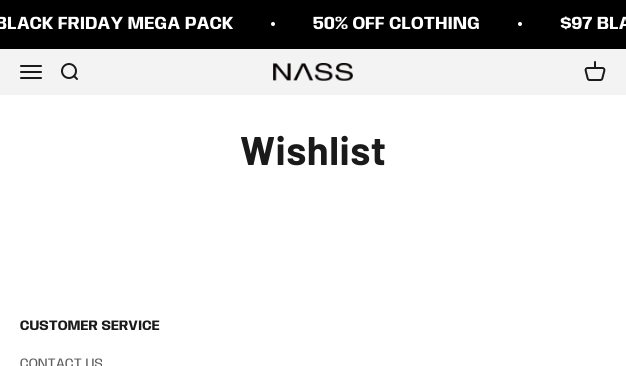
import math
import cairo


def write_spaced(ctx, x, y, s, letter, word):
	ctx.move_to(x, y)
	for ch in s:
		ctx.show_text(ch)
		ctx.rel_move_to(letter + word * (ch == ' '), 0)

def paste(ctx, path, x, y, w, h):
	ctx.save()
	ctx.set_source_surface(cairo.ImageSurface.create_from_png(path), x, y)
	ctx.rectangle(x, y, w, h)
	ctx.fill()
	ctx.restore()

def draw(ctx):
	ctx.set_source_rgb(1, 1, 1)
	ctx.paint()
	ctx.set_source_rgb(0, 0, 0)
	ctx.rectangle(0, 0, 626, 49)
	ctx.fill()
	ctx.select_font_face('Anybody', cairo.FONT_SLANT_NORMAL, cairo.FONT_WEIGHT_BOLD)
	ctx.set_font_size(18)
	ctx.set_source_rgb(1, 1, 1)
	ctx.move_to(-5, 29)
	ctx.show_text('BLACK FRIDAY MEGA PACK')
	ctx.new_path()
	ctx.arc(273, 24, 2, 0, 2 * math.pi)
	ctx.fill()
	ctx.move_to(313, 29)
	ctx.show_text('50% OFF CLOTHING')
	ctx.new_path()
	ctx.arc(520, 24, 2, 0, 2 * math.pi)
	ctx.fill()
	ctx.move_to(560, 29)
	ctx.show_text('$97 BLA')
	ctx.set_source_rgb(0.953, 0.953, 0.953)
	ctx.rectangle(0, 49, 626, 46)
	ctx.fill()
	paste(ctx, 'media/1.png', 20, 65, 22, 14)
	paste(ctx, 'media/2.png', 61, 63, 17, 17)
	paste(ctx, 'media/3.png', 273, 63, 80, 18)
	paste(ctx, 'media/4.png', 584, 61, 22, 20)
	ctx.select_font_face('Barlow', cairo.FONT_SLANT_NORMAL, cairo.FONT_WEIGHT_BOLD)
	ctx.set_font_size(40)
	ctx.set_source_rgb(0.102, 0.102, 0.102)
	write_spaced(ctx, 240, 165, 'Wishlist', 0.5, 0)
	ctx.select_font_face('Anybody', cairo.FONT_SLANT_NORMAL, cairo.FONT_WEIGHT_BOLD)
	ctx.set_font_size(14)
	ctx.move_to(20, 330)
	ctx.show_text('CUSTOMER SERVICE')
	ctx.select_font_face('Anybody')
	ctx.set_source_rgb(0.373, 0.373, 0.373)
	ctx.move_to(20, 368)
	ctx.show_text('CONTACT US')


surface = cairo.ImageSurface(cairo.FORMAT_RGB24, 626, 366)
ctx = cairo.Context(surface)
options = cairo.FontOptions()
options.set_hint_metrics(cairo.HINT_METRICS_OFF)
options.set_hint_style(cairo.HINT_STYLE_NONE)
ctx.set_font_options(options)
ctx.set_miter_limit(4)
draw(ctx)
surface.write_to_png('image.png')
